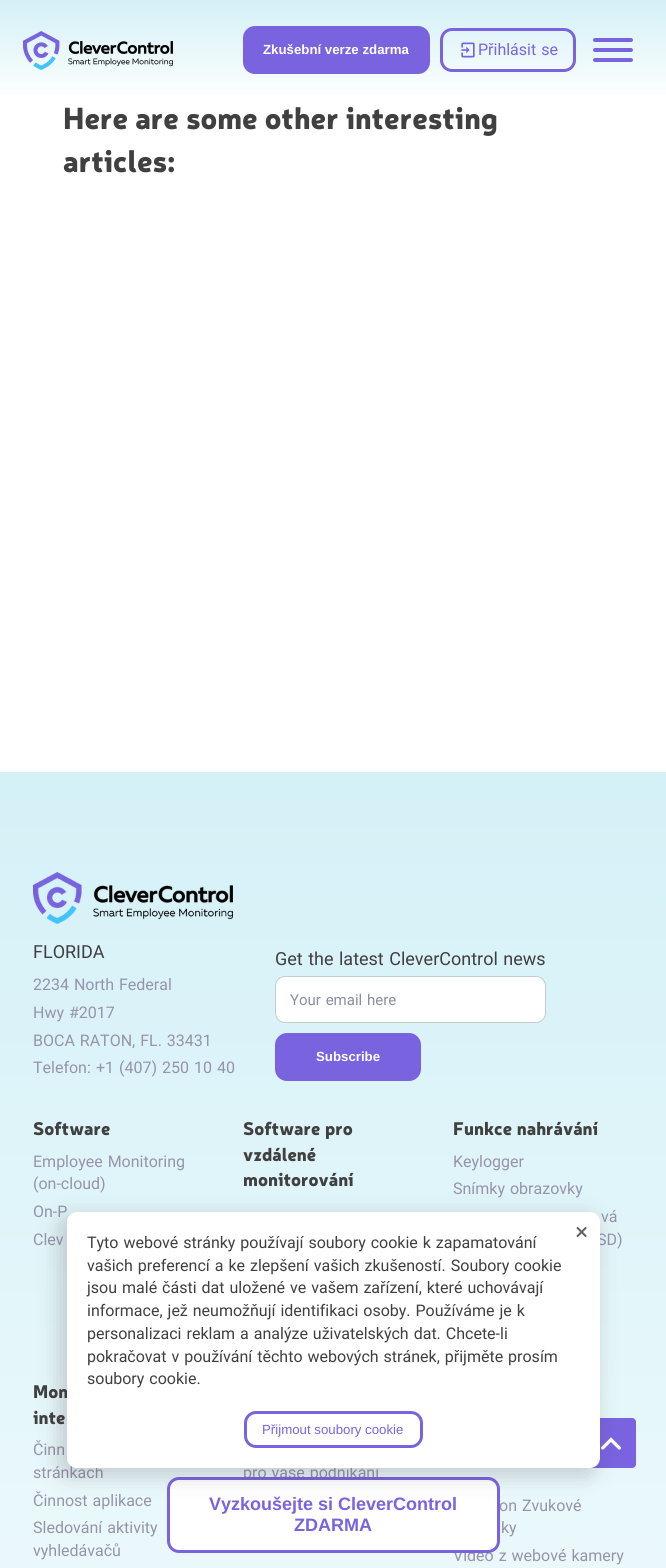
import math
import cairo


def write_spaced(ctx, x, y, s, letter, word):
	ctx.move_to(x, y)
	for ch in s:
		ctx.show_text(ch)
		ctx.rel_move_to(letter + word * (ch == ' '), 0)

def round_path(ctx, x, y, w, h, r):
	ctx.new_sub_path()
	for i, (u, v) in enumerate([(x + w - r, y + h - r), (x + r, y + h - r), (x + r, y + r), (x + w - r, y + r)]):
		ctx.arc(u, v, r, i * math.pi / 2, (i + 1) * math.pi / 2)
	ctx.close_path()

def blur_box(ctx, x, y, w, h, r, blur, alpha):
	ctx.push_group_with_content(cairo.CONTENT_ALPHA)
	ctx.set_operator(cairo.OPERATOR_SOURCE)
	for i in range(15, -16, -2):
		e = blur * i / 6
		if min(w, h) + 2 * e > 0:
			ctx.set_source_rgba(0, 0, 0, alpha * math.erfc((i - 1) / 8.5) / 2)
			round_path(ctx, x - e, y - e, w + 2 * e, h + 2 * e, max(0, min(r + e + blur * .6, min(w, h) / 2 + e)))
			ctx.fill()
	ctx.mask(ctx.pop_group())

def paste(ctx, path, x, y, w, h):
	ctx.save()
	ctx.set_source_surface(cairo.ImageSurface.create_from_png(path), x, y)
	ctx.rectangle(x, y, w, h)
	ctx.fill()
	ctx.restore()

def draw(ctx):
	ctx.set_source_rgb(1, 1, 1)
	ctx.paint()
	gradient = cairo.LinearGradient(333, 0, 333, 100)
	gradient.add_color_stop_rgba(0, 0.827, 0.941, 0.965, 1)
	gradient.add_color_stop_rgba(1, 1, 1, 1, 1)
	ctx.set_source(gradient)
	ctx.rectangle(0, 0, 666, 94)
	ctx.fill()
	paste(ctx, 'media/1.png', 23, 31, 150, 39)
	ctx.set_source_rgb(0.478, 0.388, 0.875)
	round_path(ctx, 243, 26, 187, 48, 12)
	ctx.fill()
	ctx.select_font_face('Liberation Sans', cairo.FONT_SLANT_NORMAL, cairo.FONT_WEIGHT_BOLD)
	ctx.set_font_size(13.25)
	ctx.set_source_rgb(1, 1, 1)
	ctx.move_to(263, 54)
	ctx.show_text('Zkušební verze zdarma')
	round_path(ctx, 441.5, 29.5, 133, 41, 10.5)
	ctx.set_source_rgb(0.478, 0.388, 0.875)
	ctx.set_line_width(3)
	ctx.stroke()
	paste(ctx, 'media/2.png', 461, 42, 14, 16)
	ctx.select_font_face('Roboto')
	ctx.set_font_size(16)
	write_spaced(ctx, 478, 55, 'Přihlásit se', 0, 1)
	round_path(ctx, 593, 38, 40, 4, 2)
	ctx.fill()
	round_path(ctx, 593, 48, 40, 4, 2)
	ctx.fill()
	round_path(ctx, 593, 58, 40, 4, 2)
	ctx.fill()
	ctx.select_font_face('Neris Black')
	ctx.set_font_size(30)
	ctx.set_source_rgb(0.251, 0.251, 0.251)
	write_spaced(ctx, 63, 129, 'Here are some other interesting', 0, 1)
	ctx.move_to(63, 172)
	ctx.show_text('articles:')
	gradient = cairo.LinearGradient(333, 772, 333, 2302)
	gradient.add_color_stop_rgba(0, 0.831, 0.945, 0.969, 1)
	gradient.add_color_stop_rgba(1, 1, 1, 1, 1)
	ctx.set_source(gradient)
	ctx.rectangle(0, 772, 666, 796)
	ctx.fill()
	paste(ctx, 'media/3.png', 33, 872, 200, 52)
	ctx.select_font_face('Roboto')
	ctx.set_font_size(18)
	ctx.set_source_rgb(0.251, 0.251, 0.251)
	ctx.move_to(33, 958)
	ctx.show_text('FLORIDA')
	ctx.set_font_size(16)
	ctx.set_source_rgb(0.592, 0.576, 0.663)
	for x, y, s in [
		(33, 990, '2234 North Federal'),
		(33, 1018, 'Hwy #2017'),
		(33, 1046, 'BOCA RATON, FL. 33431'),
	]:
		write_spaced(ctx, x, y, s, 0, 1)
	ctx.move_to(33, 1073)
	ctx.show_text('Telefon:')
	write_spaced(ctx, 96, 1073, '+1 (407) 250 10 40', 0, 1)
	ctx.set_font_size(18)
	ctx.set_source_rgb(0.251, 0.251, 0.251)
	write_spaced(ctx, 275, 965, 'Get the latest CleverControl news', 0, 1)
	ctx.set_source_rgb(1, 1, 1)
	round_path(ctx, 275.5, 976.5, 270, 46, 9.5)
	ctx.fill_preserve()
	ctx.set_source_rgb(0.757, 0.8, 0.827)
	ctx.set_line_width(1)
	ctx.stroke()
	ctx.set_font_size(15)
	ctx.set_source_rgb(0.541, 0.553, 0.631)
	write_spaced(ctx, 290, 1005, 'Your email here', 0, 1)
	ctx.set_source_rgb(0.478, 0.388, 0.875)
	round_path(ctx, 275, 1033, 146, 48, 12)
	ctx.fill()
	ctx.select_font_face('Liberation Sans', cairo.FONT_SLANT_NORMAL, cairo.FONT_WEIGHT_BOLD)
	ctx.set_font_size(13.25)
	ctx.set_source_rgb(1, 1, 1)
	ctx.move_to(316, 1061)
	ctx.show_text('Subscribe')
	ctx.select_font_face('Neris Black')
	ctx.set_font_size(18)
	ctx.set_source_rgb(0.251, 0.251, 0.251)
	ctx.move_to(33, 1135)
	ctx.show_text('Software')
	ctx.select_font_face('Roboto')
	ctx.set_font_size(16)
	ctx.set_source_rgb(0.592, 0.576, 0.663)
	write_spaced(ctx, 33, 1167, 'Employee Monitoring', 0, 1)
	ctx.move_to(33, 1189)
	ctx.show_text('(on-cloud)')
	ctx.move_to(33, 1217)
	ctx.show_text('On-P')
	write_spaced(ctx, 33, 1245, 'Clev', 0, 1)
	ctx.select_font_face('Neris Black')
	ctx.set_font_size(18)
	ctx.set_source_rgb(0.251, 0.251, 0.251)
	write_spaced(ctx, 243, 1135, 'Software pro', 0, 1)
	ctx.move_to(243, 1161)
	ctx.show_text('vzdálené')
	ctx.move_to(243, 1186)
	ctx.show_text('monitorování')
	write_spaced(ctx, 453, 1135, 'Funkce nahrávání', 0, 1)
	ctx.select_font_face('Roboto')
	ctx.set_font_size(16)
	ctx.set_source_rgb(0.592, 0.576, 0.663)
	ctx.move_to(453, 1167)
	ctx.show_text('Keylogger')
	for x, y, s in [
		(453, 1194, 'Snímky obrazovky'),
		(601, 1222, 'vá'),
		(597, 1245, 'SD)'),
	]:
		write_spaced(ctx, x, y, s, 0, 1)
	ctx.select_font_face('Neris Black')
	ctx.set_font_size(18)
	ctx.set_source_rgb(0.251, 0.251, 0.251)
	write_spaced(ctx, 33, 1398, 'Mon', 0, 1)
	ctx.move_to(33, 1424)
	ctx.show_text('inte')
	ctx.select_font_face('Roboto')
	ctx.set_font_size(16)
	ctx.set_source_rgb(0.592, 0.576, 0.663)
	write_spaced(ctx, 33, 1455, 'Činn', 0, 1)
	ctx.move_to(33, 1478)
	ctx.show_text('stránkách')
	write_spaced(ctx, 33, 1506, 'Činnost aplikace', 0, 1)
	write_spaced(ctx, 33, 1533, 'Sledování aktivity', 0, 1)
	ctx.move_to(33, 1556)
	ctx.show_text('vyhledávačů')
	write_spaced(ctx, 243, 1478, 'pro vaše podnikání', 0, 1)
	write_spaced(ctx, 499, 1511, 'on Zvukové', 0, 1)
	ctx.move_to(501, 1533)
	ctx.show_text('ky')
	write_spaced(ctx, 453, 1561, 'Video z webové kamery', 0, 1)
	ctx.set_source_rgb(0.478, 0.388, 0.875)
	round_path(ctx, 586, 1418, 50, 50, 4)
	ctx.fill()
	paste(ctx, 'media/5.png', 601, 1437, 20, 13)
	ctx.set_source_rgb(1, 1, 1)
	round_path(ctx, 168.5, 1478.5, 330, 73, 10.5)
	ctx.fill_preserve()
	ctx.set_source_rgb(0.478, 0.388, 0.875)
	ctx.set_line_width(3)
	ctx.stroke()
	ctx.set_source_rgb(0.212, 0.173, 0.173)
	blur_box(ctx, 58, 1215, 539, 262, 13, 10, 0.2)
	ctx.set_source_rgb(1, 1, 1)
	round_path(ctx, 67, 1212, 533, 256, 10)
	ctx.fill()
	paste(ctx, 'media/4.png', 576, 1227, 11, 10)
	ctx.set_source_rgb(0.251, 0.251, 0.251)
	for x, y, s in [
		(87, 1248, 'Tyto webové stránky používají soubory cookie k zapamatování'),
		(87, 1271, 'vašich preferencí a ke zlepšení vašich zkušeností. Soubory cookie'),
		(87, 1293, 'jsou malé části dat uložené ve vašem zařízení, které uchovávají'),
		(87, 1316, 'informace, jež neumožňují identifikaci osoby. Používáme je k'),
		(87, 1339, 'personalizaci reklam a analýze uživatelských dat. Chcete-li'),
		(87, 1362, 'pokračovat v používání těchto webových stránek, přijměte prosím'),
		(87, 1384, 'soubory cookie.'),
	]:
		write_spaced(ctx, x, y, s, 0, 1)
	round_path(ctx, 245.5, 1412.5, 176, 34, 10.5)
	ctx.set_source_rgb(0.478, 0.388, 0.875)
	ctx.stroke()
	ctx.select_font_face('Liberation Sans')
	ctx.set_font_size(13.25)
	ctx.move_to(262, 1434)
	ctx.show_text('Přijmout soubory cookie')
	ctx.select_font_face('Liberation Sans', cairo.FONT_SLANT_NORMAL, cairo.FONT_WEIGHT_BOLD)
	ctx.set_font_size(18)
	ctx.move_to(209, 1510)
	ctx.show_text('Vyzkoušejte si CleverControl')
	ctx.move_to(294, 1531)
	ctx.show_text('ZDARMA')


surface = cairo.ImageSurface(cairo.FORMAT_RGB24, 666, 1568)
ctx = cairo.Context(surface)
options = cairo.FontOptions()
options.set_hint_metrics(cairo.HINT_METRICS_OFF)
options.set_hint_style(cairo.HINT_STYLE_NONE)
ctx.set_font_options(options)
ctx.set_miter_limit(4)
draw(ctx)
surface.write_to_png('image.png')
